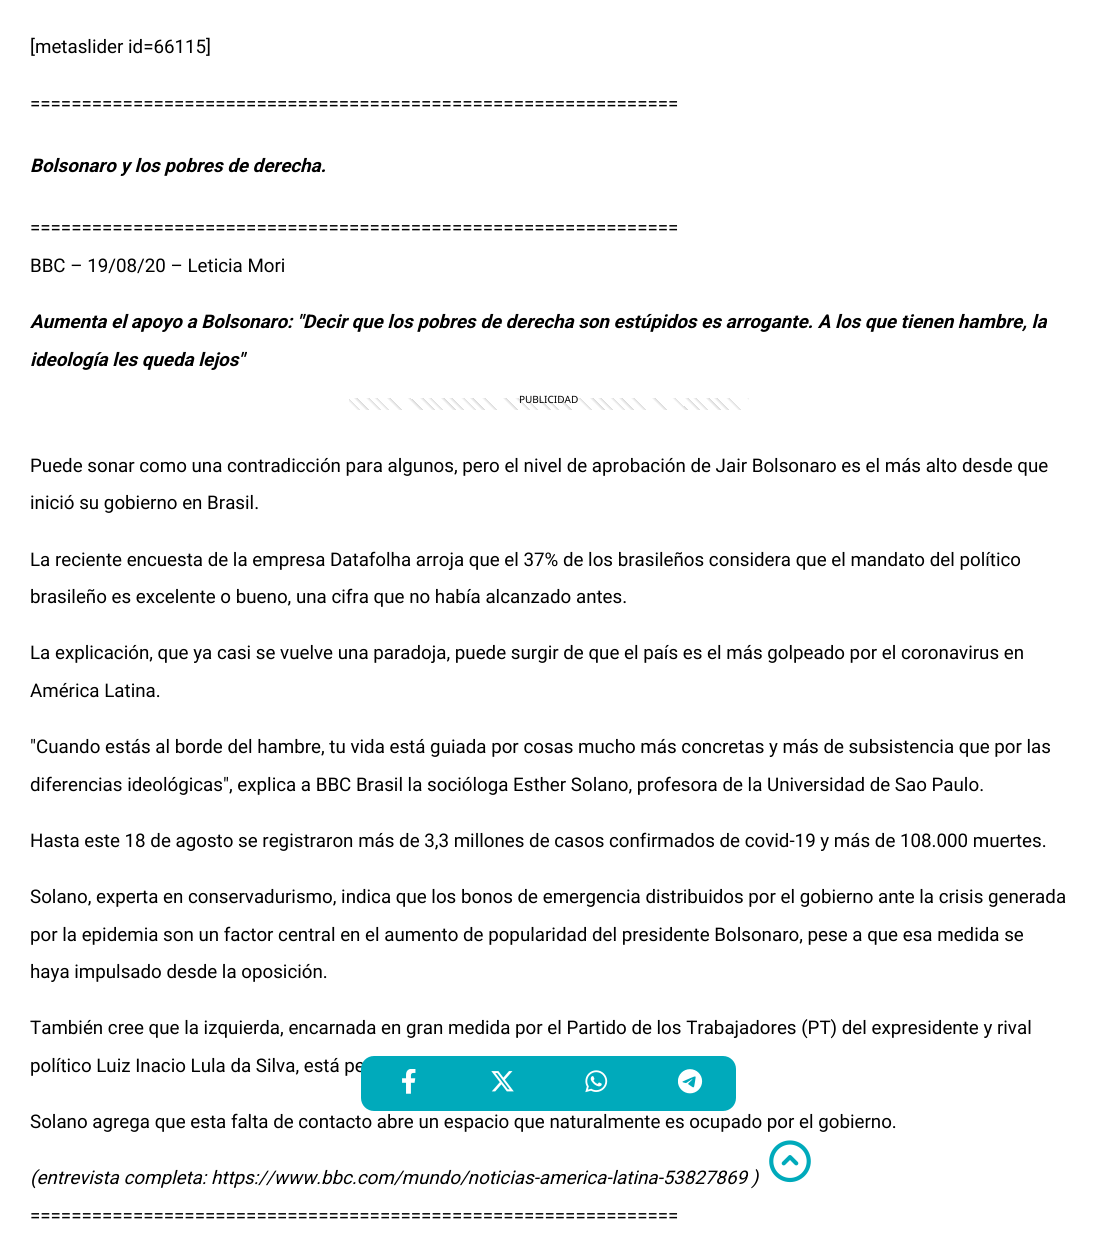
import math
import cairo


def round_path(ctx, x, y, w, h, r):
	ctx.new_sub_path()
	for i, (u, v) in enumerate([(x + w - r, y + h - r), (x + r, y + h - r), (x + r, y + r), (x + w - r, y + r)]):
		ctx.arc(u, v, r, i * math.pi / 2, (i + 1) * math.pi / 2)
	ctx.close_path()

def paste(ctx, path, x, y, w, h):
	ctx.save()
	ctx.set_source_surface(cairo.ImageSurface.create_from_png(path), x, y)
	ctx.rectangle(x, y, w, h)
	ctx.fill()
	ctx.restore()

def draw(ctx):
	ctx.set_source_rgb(1, 1, 1)
	ctx.paint()
	ctx.select_font_face('Roboto')
	ctx.set_font_size(18.75)
	ctx.set_source_rgb(0, 0, 0)
	ctx.move_to(30, 53)
	ctx.show_text('[metaslider id=66115]')
	ctx.move_to(30, 110)
	ctx.show_text('===============================================================')
	ctx.select_font_face('Roboto', cairo.FONT_SLANT_ITALIC, cairo.FONT_WEIGHT_BOLD)
	ctx.move_to(30, 172)
	ctx.show_text('Bolsonaro y los pobres de derecha.')
	ctx.select_font_face('Roboto')
	ctx.move_to(30, 234)
	ctx.show_text('===============================================================')
	ctx.move_to(30, 272)
	ctx.show_text('BBC – 19/08/20 – Leticia Mori')
	ctx.select_font_face('Roboto', cairo.FONT_SLANT_ITALIC, cairo.FONT_WEIGHT_BOLD)
	ctx.move_to(30, 328)
	ctx.show_text('Aumenta el apoyo a Bolsonaro: "Decir que los pobres de derecha son estúpidos es arrogante. A los que tienen hambre, la')
	ctx.move_to(30, 366)
	ctx.show_text('ideología les queda lejos"')
	gradient = cairo.LinearGradient(446, 507, 652, 300)
	gradient.add_color_stop_rgba(0, 1, 1, 1, 1)
	gradient.add_color_stop_rgba(0.02, 1, 1, 1, 1)
	gradient.add_color_stop_rgba(0.03, 0.851, 0.851, 0.851, 1)
	gradient.add_color_stop_rgba(0.03, 1, 1, 1, 1)
	gradient.add_color_stop_rgba(0.04, 1, 1, 1, 1)
	gradient.add_color_stop_rgba(0.05, 0.851, 0.851, 0.851, 1)
	gradient.add_color_stop_rgba(0.05, 1, 1, 1, 1)
	gradient.add_color_stop_rgba(0.07, 1, 1, 1, 1)
	gradient.add_color_stop_rgba(0.08, 0.851, 0.851, 0.851, 1)
	gradient.add_color_stop_rgba(0.08, 1, 1, 1, 1)
	gradient.add_color_stop_rgba(0.09, 1, 1, 1, 1)
	gradient.add_color_stop_rgba(0.1, 0.851, 0.851, 0.851, 1)
	gradient.add_color_stop_rgba(0.1, 1, 1, 1, 1)
	gradient.add_color_stop_rgba(0.12, 1, 1, 1, 1)
	gradient.add_color_stop_rgba(0.13, 0.851, 0.851, 0.851, 1)
	gradient.add_color_stop_rgba(0.13, 1, 1, 1, 1)
	gradient.add_color_stop_rgba(0.15, 1, 1, 1, 1)
	gradient.add_color_stop_rgba(0.15, 0.851, 0.851, 0.851, 1)
	gradient.add_color_stop_rgba(0.15, 1, 1, 1, 1)
	gradient.add_color_stop_rgba(0.17, 1, 1, 1, 1)
	gradient.add_color_stop_rgba(0.18, 0.851, 0.851, 0.851, 1)
	gradient.add_color_stop_rgba(0.18, 1, 1, 1, 1)
	gradient.add_color_stop_rgba(0.2, 1, 1, 1, 1)
	gradient.add_color_stop_rgba(0.21, 0.851, 0.851, 0.851, 1)
	gradient.add_color_stop_rgba(0.21, 1, 1, 1, 1)
	gradient.add_color_stop_rgba(0.22, 1, 1, 1, 1)
	gradient.add_color_stop_rgba(0.23, 0.851, 0.851, 0.851, 1)
	gradient.add_color_stop_rgba(0.23, 1, 1, 1, 1)
	gradient.add_color_stop_rgba(0.25, 1, 1, 1, 1)
	gradient.add_color_stop_rgba(0.26, 0.851, 0.851, 0.851, 1)
	gradient.add_color_stop_rgba(0.26, 1, 1, 1, 1)
	gradient.add_color_stop_rgba(0.27, 1, 1, 1, 1)
	gradient.add_color_stop_rgba(0.28, 0.851, 0.851, 0.851, 1)
	gradient.add_color_stop_rgba(0.28, 1, 1, 1, 1)
	gradient.add_color_stop_rgba(0.3, 1, 1, 1, 1)
	gradient.add_color_stop_rgba(0.31, 0.851, 0.851, 0.851, 1)
	gradient.add_color_stop_rgba(0.31, 1, 1, 1, 1)
	gradient.add_color_stop_rgba(0.32, 1, 1, 1, 1)
	gradient.add_color_stop_rgba(0.33, 0.851, 0.851, 0.851, 1)
	gradient.add_color_stop_rgba(0.33, 1, 1, 1, 1)
	gradient.add_color_stop_rgba(0.35, 1, 1, 1, 1)
	gradient.add_color_stop_rgba(0.36, 0.851, 0.851, 0.851, 1)
	gradient.add_color_stop_rgba(0.36, 1, 1, 1, 1)
	gradient.add_color_stop_rgba(0.38, 1, 1, 1, 1)
	gradient.add_color_stop_rgba(0.38, 0.851, 0.851, 0.851, 1)
	gradient.add_color_stop_rgba(0.38, 1, 1, 1, 1)
	gradient.add_color_stop_rgba(0.4, 1, 1, 1, 1)
	gradient.add_color_stop_rgba(0.41, 0.851, 0.851, 0.851, 1)
	gradient.add_color_stop_rgba(0.41, 1, 1, 1, 1)
	gradient.add_color_stop_rgba(0.43, 1, 1, 1, 1)
	gradient.add_color_stop_rgba(0.44, 0.851, 0.851, 0.851, 1)
	gradient.add_color_stop_rgba(0.44, 1, 1, 1, 1)
	gradient.add_color_stop_rgba(0.45, 1, 1, 1, 1)
	gradient.add_color_stop_rgba(0.46, 0.851, 0.851, 0.851, 1)
	gradient.add_color_stop_rgba(0.46, 1, 1, 1, 1)
	gradient.add_color_stop_rgba(0.48, 1, 1, 1, 1)
	gradient.add_color_stop_rgba(0.49, 0.851, 0.851, 0.851, 1)
	gradient.add_color_stop_rgba(0.49, 1, 1, 1, 1)
	gradient.add_color_stop_rgba(0.5, 1, 1, 1, 1)
	gradient.add_color_stop_rgba(0.51, 0.851, 0.851, 0.851, 1)
	gradient.add_color_stop_rgba(0.51, 1, 1, 1, 1)
	gradient.add_color_stop_rgba(0.53, 1, 1, 1, 1)
	gradient.add_color_stop_rgba(0.54, 0.851, 0.851, 0.851, 1)
	gradient.add_color_stop_rgba(0.54, 1, 1, 1, 1)
	gradient.add_color_stop_rgba(0.56, 1, 1, 1, 1)
	gradient.add_color_stop_rgba(0.56, 0.851, 0.851, 0.851, 1)
	gradient.add_color_stop_rgba(0.56, 1, 1, 1, 1)
	gradient.add_color_stop_rgba(0.58, 1, 1, 1, 1)
	gradient.add_color_stop_rgba(0.59, 0.851, 0.851, 0.851, 1)
	gradient.add_color_stop_rgba(0.59, 1, 1, 1, 1)
	gradient.add_color_stop_rgba(0.61, 1, 1, 1, 1)
	gradient.add_color_stop_rgba(0.62, 0.851, 0.851, 0.851, 1)
	gradient.add_color_stop_rgba(0.62, 1, 1, 1, 1)
	gradient.add_color_stop_rgba(0.63, 1, 1, 1, 1)
	gradient.add_color_stop_rgba(0.64, 0.851, 0.851, 0.851, 1)
	gradient.add_color_stop_rgba(0.64, 1, 1, 1, 1)
	gradient.add_color_stop_rgba(0.66, 1, 1, 1, 1)
	gradient.add_color_stop_rgba(0.67, 0.851, 0.851, 0.851, 1)
	gradient.add_color_stop_rgba(0.67, 1, 1, 1, 1)
	gradient.add_color_stop_rgba(0.68, 1, 1, 1, 1)
	gradient.add_color_stop_rgba(0.69, 0.851, 0.851, 0.851, 1)
	gradient.add_color_stop_rgba(0.69, 1, 1, 1, 1)
	gradient.add_color_stop_rgba(0.71, 1, 1, 1, 1)
	gradient.add_color_stop_rgba(0.72, 0.851, 0.851, 0.851, 1)
	gradient.add_color_stop_rgba(0.72, 1, 1, 1, 1)
	gradient.add_color_stop_rgba(0.74, 1, 1, 1, 1)
	gradient.add_color_stop_rgba(0.74, 0.851, 0.851, 0.851, 1)
	gradient.add_color_stop_rgba(0.74, 1, 1, 1, 1)
	gradient.add_color_stop_rgba(0.76, 1, 1, 1, 1)
	gradient.add_color_stop_rgba(0.77, 0.851, 0.851, 0.851, 1)
	gradient.add_color_stop_rgba(0.77, 1, 1, 1, 1)
	gradient.add_color_stop_rgba(0.79, 1, 1, 1, 1)
	gradient.add_color_stop_rgba(0.79, 0.851, 0.851, 0.851, 1)
	gradient.add_color_stop_rgba(0.79, 1, 1, 1, 1)
	gradient.add_color_stop_rgba(0.81, 1, 1, 1, 1)
	gradient.add_color_stop_rgba(0.82, 0.851, 0.851, 0.851, 1)
	gradient.add_color_stop_rgba(0.82, 1, 1, 1, 1)
	gradient.add_color_stop_rgba(0.84, 1, 1, 1, 1)
	gradient.add_color_stop_rgba(0.85, 0.851, 0.851, 0.851, 1)
	gradient.add_color_stop_rgba(0.85, 1, 1, 1, 1)
	gradient.add_color_stop_rgba(0.86, 1, 1, 1, 1)
	gradient.add_color_stop_rgba(0.87, 0.851, 0.851, 0.851, 1)
	gradient.add_color_stop_rgba(0.87, 1, 1, 1, 1)
	gradient.add_color_stop_rgba(0.89, 1, 1, 1, 1)
	gradient.add_color_stop_rgba(0.9, 0.851, 0.851, 0.851, 1)
	gradient.add_color_stop_rgba(0.9, 1, 1, 1, 1)
	gradient.add_color_stop_rgba(0.91, 1, 1, 1, 1)
	gradient.add_color_stop_rgba(0.92, 0.851, 0.851, 0.851, 1)
	gradient.add_color_stop_rgba(0.92, 1, 1, 1, 1)
	gradient.add_color_stop_rgba(0.94, 1, 1, 1, 1)
	gradient.add_color_stop_rgba(0.95, 0.851, 0.851, 0.851, 1)
	gradient.add_color_stop_rgba(0.95, 1, 1, 1, 1)
	gradient.add_color_stop_rgba(0.97, 1, 1, 1, 1)
	gradient.add_color_stop_rgba(0.97, 0.851, 0.851, 0.851, 1)
	gradient.add_color_stop_rgba(0.97, 1, 1, 1, 1)
	gradient.add_color_stop_rgba(0.99, 1, 1, 1, 1)
	gradient.add_color_stop_rgba(1, 0.851, 0.851, 0.851, 1)
	ctx.set_source(gradient)
	ctx.rectangle(349, 398, 400, 12)
	ctx.fill()
	ctx.select_font_face('Noto Sans')
	ctx.set_font_size(10)
	ctx.set_source_rgb(0, 0, 0)
	ctx.move_to(519, 403)
	ctx.show_text('PUBLICIDAD')
	ctx.select_font_face('Roboto')
	ctx.set_font_size(18.75)
	for x, y, s in [
		(30, 472, 'Puede sonar como una contradicción para algunos, pero el nivel de aprobación de Jair Bolsonaro es el más alto desde que'),
		(30, 509, 'inició su gobierno en Brasil.'),
		(30, 566, 'La reciente encuesta de la empresa Datafolha arroja que el 37% de los brasileños considera que el mandato del político'),
		(30, 603, 'brasileño es excelente o bueno, una cifra que no había alcanzado antes.'),
		(30, 659, 'La explicación, que ya casi se vuelve una paradoja, puede surgir de que el país es el más golpeado por el coronavirus en'),
		(30, 697, 'América Latina.'),
		(30, 753, '"Cuando estás al borde del hambre, tu vida está guiada por cosas mucho más concretas y más de subsistencia que por las'),
		(30, 791, 'diferencias ideológicas", explica a BBC Brasil la socióloga Esther Solano, profesora de la Universidad de Sao Paulo.'),
		(30, 847, 'Hasta este 18 de agosto se registraron más de 3,3 millones de casos confirmados de covid-19 y más de 108.000 muertes.'),
		(30, 903, 'Solano, experta en conservadurismo, indica que los bonos de emergencia distribuidos por el gobierno ante la crisis generada'),
		(30, 941, 'por la epidemia son un factor central en el aumento de popularidad del presidente Bolsonaro, pese a que esa medida se'),
		(30, 978, 'haya impulsado desde la oposición.'),
		(30, 1034, 'También cree que la izquierda, encarnada en gran medida por el Partido de los Trabajadores (PT) del expresidente y rival'),
		(30, 1072, 'político Luiz Inacio Lula da Silva, está pe'),
		(30, 1128, 'Solano agrega que esta falta de contacto abre un espacio que naturalmente es ocupado por el gobierno.'),
	]:
		ctx.move_to(x, y)
		ctx.show_text(s)
	ctx.select_font_face('Roboto', cairo.FONT_SLANT_ITALIC)
	ctx.move_to(30, 1184)
	ctx.show_text('(entrevista completa: https://www.bbc.com/mundo/noticias-america-latina-53827869 )')
	ctx.select_font_face('Roboto')
	ctx.move_to(30, 1222)
	ctx.show_text('===============================================================')
	ctx.set_source_rgb(0, 0.667, 0.733)
	round_path(ctx, 361, 1056, 375, 55, 13)
	ctx.fill()
	paste(ctx, 'media/1.png', 402, 1069, 14, 25)
	paste(ctx, 'media/2.png', 491, 1071, 23, 21)
	paste(ctx, 'media/3.png', 585, 1070, 23, 23)
	paste(ctx, 'media/4.png', 678, 1069, 25, 25)
	paste(ctx, 'media/5.png', 769, 1140, 42, 43)


surface = cairo.ImageSurface(cairo.FORMAT_RGB24, 1097, 1236)
ctx = cairo.Context(surface)
options = cairo.FontOptions()
options.set_hint_metrics(cairo.HINT_METRICS_OFF)
options.set_hint_style(cairo.HINT_STYLE_NONE)
ctx.set_font_options(options)
ctx.set_miter_limit(4)
draw(ctx)
surface.write_to_png('image.png')
